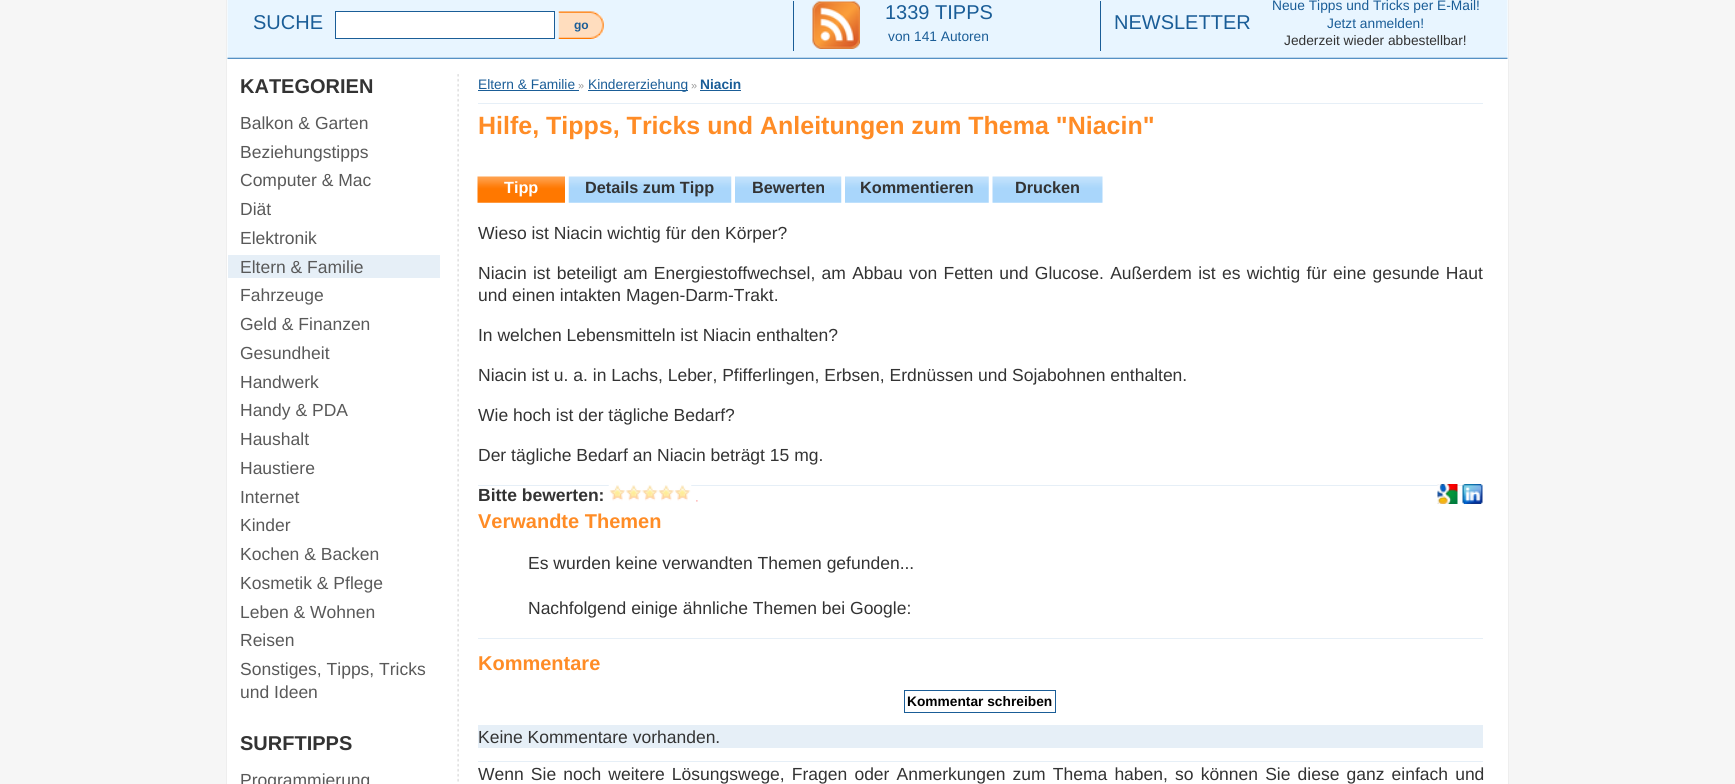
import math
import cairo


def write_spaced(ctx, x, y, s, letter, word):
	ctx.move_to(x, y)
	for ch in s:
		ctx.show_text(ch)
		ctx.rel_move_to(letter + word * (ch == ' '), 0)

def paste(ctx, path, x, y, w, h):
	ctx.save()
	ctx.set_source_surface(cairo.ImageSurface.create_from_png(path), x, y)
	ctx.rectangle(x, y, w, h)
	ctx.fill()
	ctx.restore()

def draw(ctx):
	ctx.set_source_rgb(0.961, 0.961, 0.961)
	ctx.paint()
	ctx.set_source_rgb(1, 1, 1)
	ctx.rectangle(227, 0, 1281, 784)
	ctx.fill()
	ctx.set_source_rgb(0.933, 0.933, 0.933)
	ctx.rectangle(1508, 0, 1, 784)
	ctx.rectangle(226, 0, 1, 784)
	ctx.fill()
	paste(ctx, 'media/1.png', 227, 0, 1281, 59)
	ctx.set_source_rgb(0.102, 0.365, 0.592)
	ctx.rectangle(793, 1, 1, 50)
	ctx.fill()
	ctx.select_font_face('Liberation Sans')
	ctx.set_font_size(20)
	ctx.move_to(253, 29)
	ctx.show_text('SUCHE')
	ctx.set_source_rgb(1, 1, 1)
	ctx.rectangle(335.5, 11.5, 219, 27)
	ctx.fill_preserve()
	ctx.set_source_rgb(0.102, 0.365, 0.592)
	ctx.set_line_width(1)
	ctx.stroke()
	paste(ctx, 'media/2.png', 558, 11, 46, 28)
	ctx.select_font_face('Liberation Sans', cairo.FONT_SLANT_NORMAL, cairo.FONT_WEIGHT_BOLD)
	ctx.set_font_size(12)
	ctx.move_to(574, 29)
	ctx.show_text('go')
	ctx.rectangle(1100, 1, 1, 50)
	ctx.fill()
	paste(ctx, 'media/3.png', 812, 1, 48, 48)
	ctx.select_font_face('Liberation Sans')
	ctx.set_font_size(20)
	ctx.move_to(885, 19)
	ctx.show_text('1339 TIPPS')
	ctx.set_font_size(13.75)
	ctx.move_to(888, 41)
	ctx.show_text('von 141 Autoren')
	ctx.set_font_size(20)
	ctx.move_to(1114, 29)
	ctx.show_text('NEWSLETTER')
	ctx.set_font_size(13.75)
	ctx.move_to(1272, 10)
	ctx.show_text('Neue Tipps und Tricks per E-Mail!')
	ctx.move_to(1327, 28)
	ctx.show_text('Jetzt anmelden!')
	ctx.set_source_rgb(0.2, 0.2, 0.2)
	ctx.move_to(1284, 45)
	ctx.show_text('Jederzeit wieder abbestellbar!')
	paste(ctx, 'media/4.png', 457, 74, 2, 708)
	ctx.select_font_face('Liberation Sans', cairo.FONT_SLANT_NORMAL, cairo.FONT_WEIGHT_BOLD)
	ctx.set_font_size(20)
	ctx.move_to(240, 93)
	ctx.show_text('KATEGORIEN')
	ctx.select_font_face('Liberation Sans')
	ctx.set_font_size(17.5)
	ctx.set_source_rgb(0.349, 0.349, 0.349)
	for x, y, s in [
		(240, 129, 'Balkon & Garten'),
		(240, 158, 'Beziehungstipps'),
		(240, 186, 'Computer & Mac'),
		(240, 215, 'Diät'),
		(240, 244, 'Elektronik'),
	]:
		ctx.move_to(x, y)
		ctx.show_text(s)
	ctx.set_source_rgb(0.902, 0.937, 0.965)
	ctx.rectangle(228, 255, 212, 23)
	ctx.fill()
	ctx.set_source_rgb(0.349, 0.349, 0.349)
	for x, y, s in [
		(240, 273, 'Eltern & Familie'),
		(240, 301, 'Fahrzeuge'),
		(240, 330, 'Geld & Finanzen'),
		(240, 359, 'Gesundheit'),
		(240, 388, 'Handwerk'),
		(240, 416, 'Handy & PDA'),
		(240, 445, 'Haushalt'),
		(240, 474, 'Haustiere'),
		(240, 503, 'Internet'),
		(240, 531, 'Kinder'),
		(240, 560, 'Kochen & Backen'),
		(240, 589, 'Kosmetik & Pflege'),
		(240, 618, 'Leben & Wohnen'),
		(240, 646, 'Reisen'),
		(240, 675, 'Sonstiges, Tipps, Tricks'),
		(240, 698, 'und Ideen'),
	]:
		ctx.move_to(x, y)
		ctx.show_text(s)
	ctx.select_font_face('Liberation Sans', cairo.FONT_SLANT_NORMAL, cairo.FONT_WEIGHT_BOLD)
	ctx.set_font_size(20)
	ctx.set_source_rgb(0.2, 0.2, 0.2)
	ctx.move_to(240, 750)
	ctx.show_text('SURFTIPPS')
	ctx.select_font_face('Liberation Sans')
	ctx.set_font_size(17.5)
	ctx.set_source_rgb(0.349, 0.349, 0.349)
	ctx.move_to(240, 786)
	ctx.show_text('Programmierung')
	ctx.set_source_rgb(0.902, 0.937, 0.965)
	ctx.rectangle(478, 103, 1005, 1)
	ctx.fill()
	ctx.set_font_size(13.75)
	ctx.set_source_rgb(0.102, 0.365, 0.592)
	ctx.move_to(478, 89)
	ctx.show_text('Eltern & Familie')
	ctx.rectangle(478, 90, 101, 1)
	ctx.fill()
	ctx.set_font_size(11)
	ctx.set_source_rgb(0.6, 0.6, 0.6)
	ctx.move_to(578, 89)
	ctx.show_text('»')
	ctx.set_source_rgb(0.102, 0.365, 0.592)
	ctx.rectangle(588, 90, 100, 1)
	ctx.fill()
	ctx.set_font_size(13.75)
	ctx.move_to(588, 89)
	ctx.show_text('Kindererziehung')
	ctx.set_font_size(11)
	ctx.set_source_rgb(0.6, 0.6, 0.6)
	ctx.move_to(691, 89)
	ctx.show_text('»')
	ctx.select_font_face('Liberation Sans', cairo.FONT_SLANT_NORMAL, cairo.FONT_WEIGHT_BOLD)
	ctx.set_font_size(13.75)
	ctx.set_source_rgb(0.102, 0.365, 0.592)
	ctx.move_to(700, 89)
	ctx.show_text('Niacin')
	ctx.rectangle(700, 90, 41, 1)
	ctx.fill()
	ctx.set_font_size(25)
	ctx.set_source_rgb(1, 0.549, 0.149)
	ctx.move_to(478, 134)
	ctx.show_text('Hilfe, Tipps, Tricks und Anleitungen zum Thema "Niacin"')
	paste(ctx, 'media/5.png', 477, 176, 88, 27)
	ctx.set_font_size(16.25)
	ctx.set_source_rgb(1, 1, 1)
	ctx.move_to(504, 193)
	ctx.show_text('Tipp')
	paste(ctx, 'media/6.png', 568, 176, 164, 27)
	ctx.set_source_rgb(0.2, 0.2, 0.2)
	ctx.move_to(585, 193)
	ctx.show_text('Details zum Tipp')
	paste(ctx, 'media/7.png', 735, 176, 107, 27)
	ctx.move_to(752, 193)
	ctx.show_text('Bewerten')
	paste(ctx, 'media/8.png', 845, 176, 144, 27)
	ctx.move_to(860, 193)
	ctx.show_text('Kommentieren')
	paste(ctx, 'media/9.png', 992, 176, 111, 27)
	ctx.move_to(1015, 193)
	ctx.show_text('Drucken')
	ctx.select_font_face('Liberation Sans')
	ctx.set_font_size(17.5)
	ctx.move_to(478, 239)
	ctx.show_text('Wieso ist Niacin wichtig für den Körper?')
	write_spaced(ctx, 478, 279, 'Niacin ist beteiligt am Energiestoffwechsel, am Abbau von Fetten und Glucose. Außerdem ist es wichtig für eine gesunde Haut', 0, 1.4)
	for x, y, s in [
		(478, 301, 'und einen intakten Magen-Darm-Trakt.'),
		(478, 341, 'In welchen Lebensmitteln ist Niacin enthalten?'),
		(478, 381, 'Niacin ist u. a. in Lachs, Leber, Pfifferlingen, Erbsen, Erdnüssen und Sojabohnen enthalten.'),
		(478, 421, 'Wie hoch ist der tägliche Bedarf?'),
		(478, 461, 'Der tägliche Bedarf an Niacin beträgt 15 mg.'),
	]:
		ctx.move_to(x, y)
		ctx.show_text(s)
	ctx.set_source_rgb(0.902, 0.937, 0.965)
	ctx.rectangle(478, 485, 1005, 1)
	ctx.fill()
	ctx.select_font_face('Liberation Sans', cairo.FONT_SLANT_NORMAL, cairo.FONT_WEIGHT_BOLD)
	ctx.set_source_rgb(0.2, 0.2, 0.2)
	ctx.move_to(478, 501)
	ctx.show_text('Bitte bewerten:')
	paste(ctx, 'media/10.png', 608, 485, 84, 16)
	paste(ctx, 'media/11.png', 696, 500, 2, 2)
	paste(ctx, 'media/12.png', 1437, 484, 21, 20)
	paste(ctx, 'media/13.png', 1462, 484, 21, 20)
	ctx.set_font_size(20)
	ctx.set_source_rgb(1, 0.549, 0.149)
	ctx.move_to(478, 528)
	ctx.show_text('Verwandte Themen')
	ctx.select_font_face('Liberation Sans')
	ctx.set_font_size(17.5)
	ctx.set_source_rgb(0.2, 0.2, 0.2)
	ctx.move_to(528, 569)
	ctx.show_text('Es wurden keine verwandten Themen gefunden...')
	ctx.move_to(528, 614)
	ctx.show_text('Nachfolgend einige ähnliche Themen bei Google:')
	ctx.set_source_rgb(0.902, 0.937, 0.965)
	ctx.rectangle(478, 638, 1005, 1)
	ctx.fill()
	ctx.select_font_face('Liberation Sans', cairo.FONT_SLANT_NORMAL, cairo.FONT_WEIGHT_BOLD)
	ctx.set_font_size(20)
	ctx.set_source_rgb(1, 0.549, 0.149)
	ctx.move_to(478, 670)
	ctx.show_text('Kommentare')
	ctx.rectangle(904.5, 690.5, 151, 22)
	ctx.set_source_rgb(0.102, 0.365, 0.592)
	ctx.stroke()
	ctx.set_font_size(13.75)
	ctx.set_source_rgb(0, 0, 0)
	ctx.move_to(907, 706)
	ctx.show_text('Kommentar schreiben')
	ctx.set_source_rgb(0.902, 0.937, 0.965)
	ctx.rectangle(478, 725, 1005, 23)
	ctx.fill()
	ctx.select_font_face('Liberation Sans')
	ctx.set_font_size(17.5)
	ctx.set_source_rgb(0.2, 0.2, 0.2)
	ctx.move_to(478, 743)
	ctx.show_text('Keine Kommentare vorhanden.')
	ctx.set_source_rgb(0.902, 0.937, 0.965)
	ctx.rectangle(478, 761, 1005, 1)
	ctx.fill()
	ctx.set_source_rgb(0.2, 0.2, 0.2)
	write_spaced(ctx, 478, 780, 'Wenn Sie noch weitere Lösungswege, Fragen oder Anmerkungen zum Thema haben, so können Sie diese ganz einfach und', 0, 2.25)


surface = cairo.ImageSurface(cairo.FORMAT_RGB24, 1735, 784)
ctx = cairo.Context(surface)
options = cairo.FontOptions()
options.set_hint_metrics(cairo.HINT_METRICS_OFF)
options.set_hint_style(cairo.HINT_STYLE_NONE)
ctx.set_font_options(options)
ctx.set_miter_limit(4)
draw(ctx)
surface.write_to_png('image.png')
